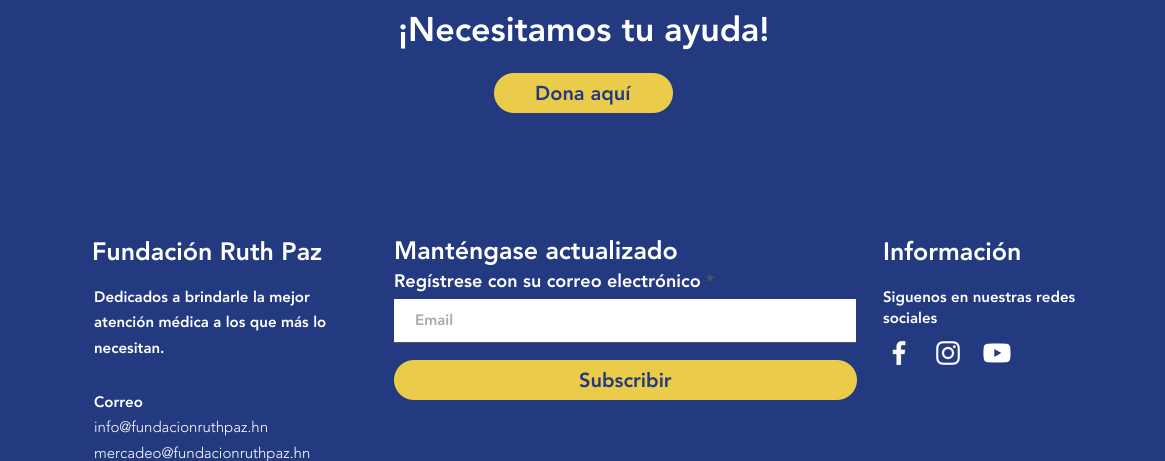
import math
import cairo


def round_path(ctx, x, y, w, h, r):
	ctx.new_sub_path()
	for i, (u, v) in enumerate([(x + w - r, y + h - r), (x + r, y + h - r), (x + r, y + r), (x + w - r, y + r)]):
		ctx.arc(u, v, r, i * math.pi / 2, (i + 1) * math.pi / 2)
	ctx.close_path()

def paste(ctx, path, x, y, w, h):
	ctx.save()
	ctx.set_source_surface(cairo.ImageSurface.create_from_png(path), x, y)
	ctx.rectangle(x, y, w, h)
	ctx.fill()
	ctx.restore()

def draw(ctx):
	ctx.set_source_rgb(0.137, 0.227, 0.502)
	ctx.paint()
	ctx.select_font_face('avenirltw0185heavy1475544 Black')
	ctx.set_font_size(34)
	ctx.set_source_rgb(1, 1, 1)
	ctx.move_to(398, 41)
	ctx.show_text('¡Necesitamos tu ayuda!')
	ctx.set_source_rgb(0.918, 0.796, 0.29)
	round_path(ctx, 494, 73, 179, 40, 20)
	ctx.fill()
	ctx.set_font_size(20)
	ctx.set_source_rgb(0.137, 0.227, 0.502)
	ctx.move_to(535, 100)
	ctx.show_text('Dona aquí')
	ctx.set_font_size(25)
	ctx.set_source_rgb(1, 1, 1)
	ctx.move_to(92, 260)
	ctx.show_text('Fundación Ruth Paz')
	ctx.set_font_size(15)
	for x, y, s in [
		(94, 302, 'Dedicados a brindarle la mejor'),
		(94, 327, 'atención médica a los que más lo'),
		(94, 353, 'necesitan.'),
		(94, 407, 'Correo'),
	]:
		ctx.move_to(x, y)
		ctx.show_text(s)
	ctx.select_font_face('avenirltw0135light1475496 Light')
	ctx.move_to(94, 432)
	ctx.show_text('info@fundacionruthpaz.hn')
	ctx.move_to(94, 458)
	ctx.show_text('mercadeo@fundacionruthpaz.hn')
	ctx.select_font_face('avenirltw0185heavy1475544 Black')
	ctx.set_font_size(25)
	ctx.move_to(394, 259)
	ctx.show_text('Manténgase actualizado')
	ctx.set_font_size(18)
	ctx.move_to(394, 287)
	ctx.show_text('Regístrese con su correo electrónico')
	ctx.set_source_rgb(0.333, 0.333, 0.333)
	ctx.move_to(706, 287)
	ctx.show_text('*')
	ctx.set_source_rgb(1, 1, 1)
	ctx.rectangle(394, 299, 462, 43)
	ctx.fill()
	ctx.set_source_rgb(0.333, 0.333, 0.333)
	ctx.rectangle(394, 342, 462, 1)
	ctx.fill()
	ctx.set_font_size(15)
	ctx.set_source_rgb(0.667, 0.667, 0.667)
	ctx.move_to(415, 325)
	ctx.show_text('Email')
	ctx.set_source_rgb(0.918, 0.796, 0.29)
	round_path(ctx, 394, 360, 463, 40, 20)
	ctx.fill()
	ctx.set_font_size(20)
	ctx.set_source_rgb(0.137, 0.227, 0.502)
	ctx.move_to(579, 387)
	ctx.show_text('Subscribir')
	ctx.set_font_size(25)
	ctx.set_source_rgb(1, 1, 1)
	ctx.move_to(883, 260)
	ctx.show_text('Información')
	ctx.set_font_size(15)
	ctx.move_to(883, 302)
	ctx.show_text('Siguenos en nuestras redes')
	ctx.move_to(883, 323)
	ctx.show_text('sociales')
	paste(ctx, 'media/1.png', 892, 340, 14, 26)
	paste(ctx, 'media/2.png', 936, 341, 24, 24)
	paste(ctx, 'media/3.png', 983, 343, 28, 20)


surface = cairo.ImageSurface(cairo.FORMAT_RGB24, 1165, 461)
ctx = cairo.Context(surface)
options = cairo.FontOptions()
options.set_hint_metrics(cairo.HINT_METRICS_OFF)
options.set_hint_style(cairo.HINT_STYLE_NONE)
ctx.set_font_options(options)
ctx.set_miter_limit(4)
draw(ctx)
surface.write_to_png('image.png')
